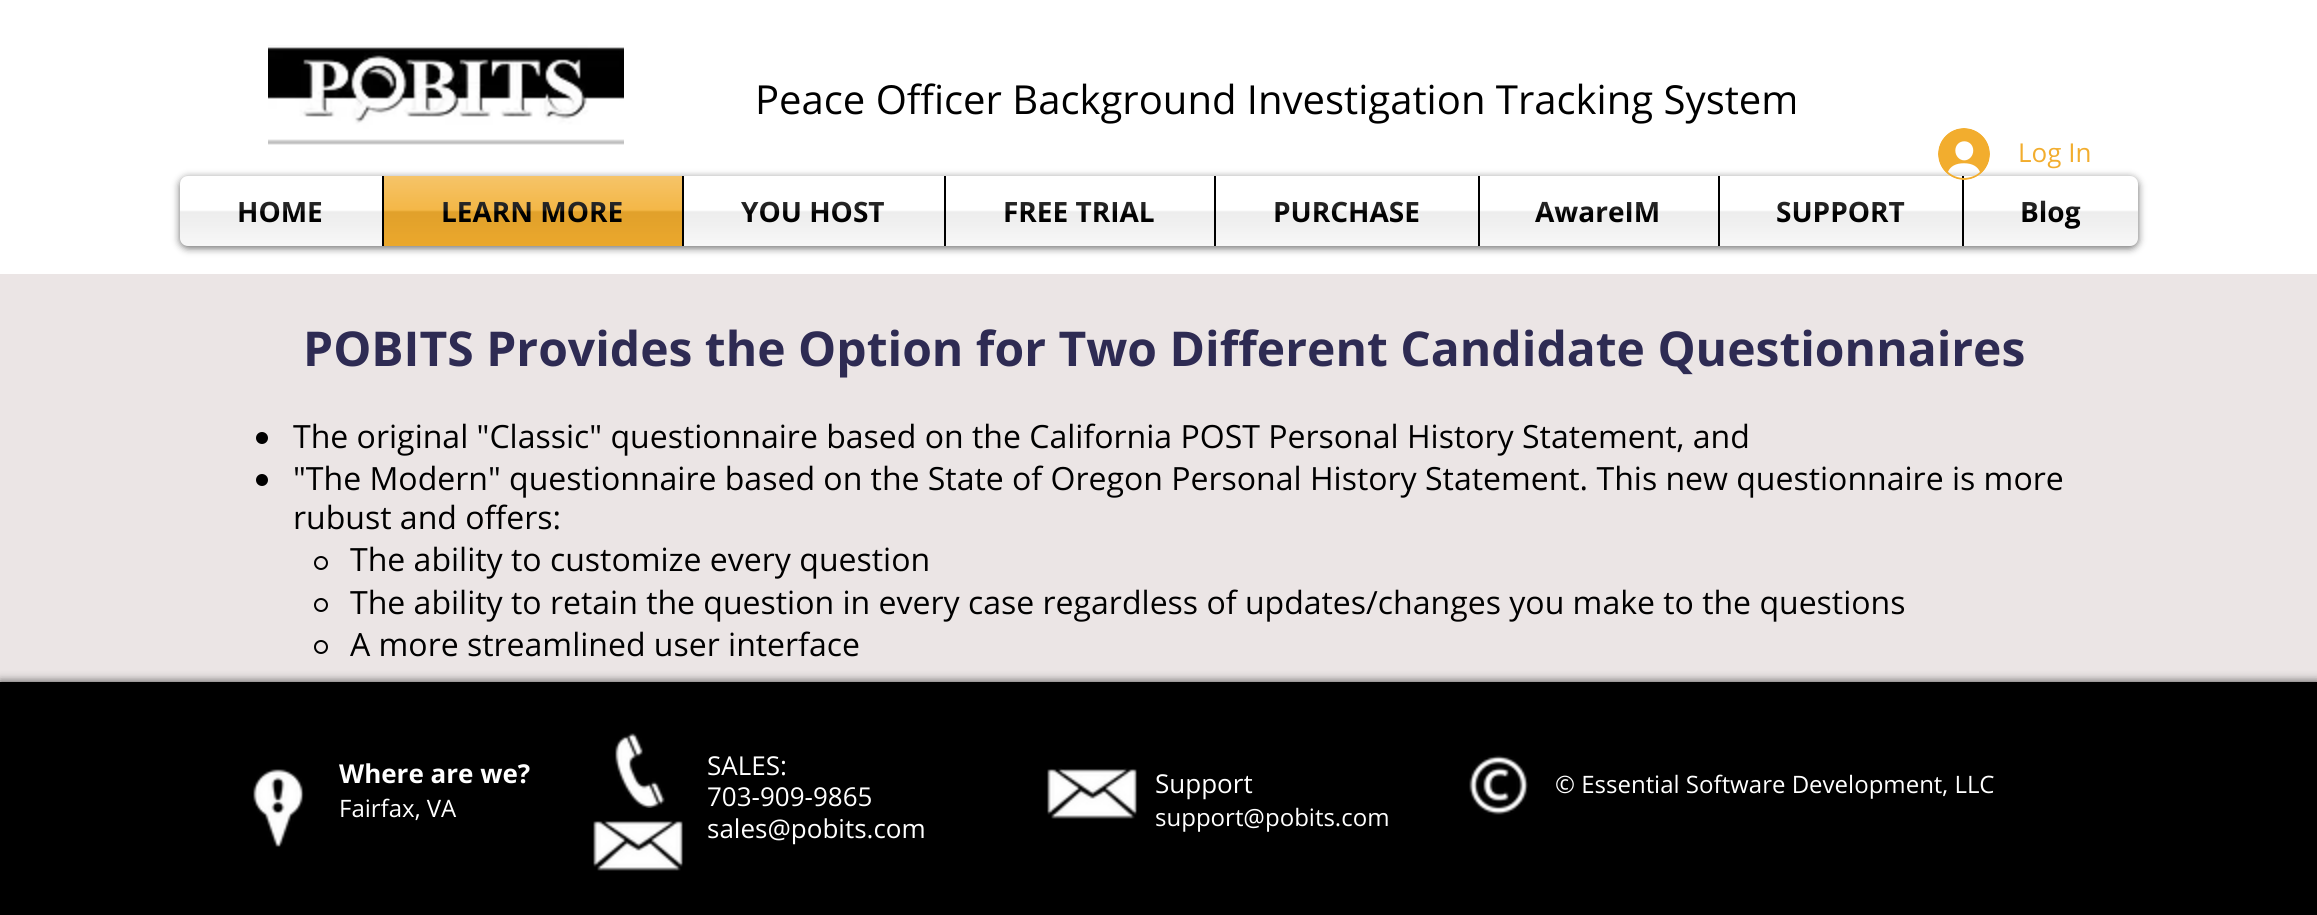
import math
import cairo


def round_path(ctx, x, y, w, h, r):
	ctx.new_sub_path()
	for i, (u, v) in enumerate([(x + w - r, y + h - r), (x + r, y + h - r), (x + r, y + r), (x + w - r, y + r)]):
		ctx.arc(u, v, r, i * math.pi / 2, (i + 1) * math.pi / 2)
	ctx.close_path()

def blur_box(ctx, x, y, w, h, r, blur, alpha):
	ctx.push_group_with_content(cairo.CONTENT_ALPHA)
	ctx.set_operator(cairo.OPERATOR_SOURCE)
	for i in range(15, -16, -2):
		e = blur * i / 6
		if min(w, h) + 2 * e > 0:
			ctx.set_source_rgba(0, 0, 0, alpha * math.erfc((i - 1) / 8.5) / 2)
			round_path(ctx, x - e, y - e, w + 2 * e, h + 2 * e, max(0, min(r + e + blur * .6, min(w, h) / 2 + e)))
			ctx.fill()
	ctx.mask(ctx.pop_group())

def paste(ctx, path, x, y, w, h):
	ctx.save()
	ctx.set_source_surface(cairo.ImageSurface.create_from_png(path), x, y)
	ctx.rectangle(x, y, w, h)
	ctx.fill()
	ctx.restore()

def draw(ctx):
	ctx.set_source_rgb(0.918, 0.898, 0.898)
	ctx.paint()
	ctx.set_source_rgb(1, 1, 1)
	ctx.rectangle(0, 0, 2317, 274)
	ctx.fill()
	paste(ctx, 'media/1.png', 268, 45, 356, 100)
	ctx.select_font_face('Open Sans')
	ctx.set_font_size(40)
	ctx.set_source_rgb(0, 0, 0)
	ctx.move_to(755, 114)
	ctx.show_text('Peace Officer Background Investigation Tracking System')
	ctx.set_source_rgb(0, 0, 0)
	blur_box(ctx, 180, 178, 1958, 70, 8, 4, 0.6)
	paste(ctx, 'media/3.png', 180, 238, 1958, 8)
	ctx.set_source_rgb(1, 1, 1)
	ctx.rectangle(1720, 176, 242, 70)
	ctx.fill()
	ctx.new_path()
	ctx.move_to(1962, 176)
	ctx.line_to(2130, 176)
	ctx.curve_to(2134.5, 176, 2138, 179.5, 2138, 184)
	ctx.line_to(2138, 238)
	ctx.curve_to(2138, 242.5, 2134.5, 246, 2130, 246)
	ctx.line_to(1962, 246)
	ctx.close_path()
	ctx.fill()
	ctx.set_source_rgb(0, 0, 0)
	ctx.rectangle(1962, 176, 2, 70)
	ctx.fill()
	paste(ctx, 'media/2.png', 1938, 128, 52, 52)
	ctx.set_font_size(26)
	ctx.set_source_rgb(0.949, 0.678, 0.18)
	ctx.move_to(2018, 162)
	ctx.show_text('Log In')
	ctx.set_source_rgb(1, 1, 1)
	ctx.new_path()
	ctx.move_to(188, 176)
	ctx.line_to(382, 176)
	ctx.line_to(382, 246)
	ctx.line_to(188, 246)
	ctx.curve_to(183.5, 246, 180, 242.5, 180, 238)
	ctx.line_to(180, 184)
	ctx.curve_to(180, 179.5, 183.5, 176, 188, 176)
	ctx.close_path()
	ctx.fill()
	ctx.select_font_face('Open Sans', cairo.FONT_SLANT_NORMAL, cairo.FONT_WEIGHT_BOLD)
	ctx.set_font_size(28)
	ctx.set_source_rgb(0, 0, 0)
	ctx.move_to(237, 222)
	ctx.show_text('HOME')
	paste(ctx, 'media/4.png', 180, 201, 202, 45)
	ctx.set_source_rgb(0.949, 0.678, 0.18)
	ctx.rectangle(384, 176, 298, 70)
	ctx.fill()
	ctx.set_source_rgb(0, 0, 0)
	ctx.rectangle(382, 176, 2, 70)
	ctx.fill()
	ctx.move_to(441, 222)
	ctx.show_text('LEARN MORE')
	paste(ctx, 'media/5.png', 384, 176, 298, 70)
	ctx.set_source_rgb(1, 1, 1)
	ctx.rectangle(684, 176, 260, 70)
	ctx.fill()
	ctx.set_source_rgb(0, 0, 0)
	ctx.rectangle(682, 176, 2, 70)
	ctx.fill()
	ctx.move_to(741, 222)
	ctx.show_text('YOU HOST')
	paste(ctx, 'media/6.png', 684, 201, 260, 45)
	ctx.set_source_rgb(1, 1, 1)
	ctx.rectangle(946, 176, 268, 70)
	ctx.fill()
	ctx.set_source_rgb(0, 0, 0)
	ctx.rectangle(944, 176, 2, 70)
	ctx.fill()
	ctx.move_to(1003, 222)
	ctx.show_text('FREE TRIAL')
	paste(ctx, 'media/7.png', 946, 202, 268, 44)
	ctx.set_source_rgb(1, 1, 1)
	ctx.rectangle(1216, 176, 262, 70)
	ctx.fill()
	ctx.set_source_rgb(0, 0, 0)
	ctx.rectangle(1214, 176, 2, 70)
	ctx.fill()
	ctx.move_to(1273, 222)
	ctx.show_text('PURCHASE')
	paste(ctx, 'media/8.png', 1216, 201, 262, 45)
	ctx.set_source_rgb(1, 1, 1)
	ctx.rectangle(1480, 176, 238, 70)
	ctx.fill()
	ctx.set_source_rgb(0, 0, 0)
	ctx.rectangle(1478, 176, 2, 70)
	ctx.fill()
	ctx.move_to(1535, 222)
	ctx.show_text('AwareIM')
	paste(ctx, 'media/9.png', 1480, 202, 238, 44)
	ctx.rectangle(1718, 176, 2, 70)
	ctx.fill()
	ctx.move_to(1776, 222)
	ctx.show_text('SUPPORT')
	paste(ctx, 'media/10.png', 1720, 201, 242, 45)
	ctx.move_to(2020, 222)
	ctx.show_text('Blog')
	paste(ctx, 'media/11.png', 1964, 200, 174, 46)
	ctx.set_font_size(48)
	ctx.set_source_rgb(0.18, 0.169, 0.325)
	ctx.move_to(303, 366)
	ctx.show_text('POBITS Provides the Option for Two Different Candidate Questionnaires')
	ctx.set_source_rgb(0, 0, 0)
	ctx.new_path()
	ctx.arc(262, 438, 6, 0, 2 * math.pi)
	ctx.fill()
	ctx.select_font_face('Open Sans')
	ctx.set_font_size(32)
	ctx.move_to(293, 448)
	ctx.show_text('The original "Classic" questionnaire based on the California POST Personal History Statement, and')
	ctx.new_path()
	ctx.arc(262, 480, 6, 0, 2 * math.pi)
	ctx.fill()
	ctx.move_to(293, 490)
	ctx.show_text('"The Modern" questionnaire based on the State of Oregon Personal History Statement. This new questionnaire is more')
	ctx.move_to(293, 529)
	ctx.show_text('rubust and offers:')
	ctx.new_path()
	ctx.arc(321, 563, 6, 0, 2 * math.pi)
	ctx.stroke()
	ctx.move_to(350, 571)
	ctx.show_text('The ability to customize every question')
	ctx.new_path()
	ctx.arc(321, 605, 6, 0, 2 * math.pi)
	ctx.stroke()
	ctx.move_to(350, 614)
	ctx.show_text('The ability to retain the question in every case regardless of updates/changes you make to the questions')
	ctx.new_path()
	ctx.arc(321, 647, 6, 0, 2 * math.pi)
	ctx.stroke()
	ctx.move_to(350, 656)
	ctx.show_text('A more streamlined user interface')
	ctx.set_source_rgb(0, 0, 0)
	blur_box(ctx, 0, 682, 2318, 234, 0, 5, 0.7)
	ctx.set_source_rgb(0, 0, 0)
	ctx.rectangle(0, 682, 2317, 233)
	ctx.fill()
	paste(ctx, 'media/12.png', 253, 769, 51, 78)
	ctx.select_font_face('Open Sans', cairo.FONT_SLANT_NORMAL, cairo.FONT_WEIGHT_BOLD)
	ctx.set_font_size(26)
	ctx.set_source_rgb(1, 1, 1)
	ctx.move_to(339, 783)
	ctx.show_text('Where are we?')
	ctx.select_font_face('Open Sans')
	ctx.set_font_size(24)
	ctx.move_to(339, 817)
	ctx.show_text('Fairfax, VA')
	paste(ctx, 'media/13.png', 615, 733, 50, 75)
	paste(ctx, 'media/14.png', 593, 820, 90, 51)
	ctx.set_font_size(26)
	for x, y, s in [
		(707, 775, 'SALES:'),
		(707, 806, '703-909-9865'),
		(707, 838, 'sales@pobits.com'),
	]:
		ctx.move_to(x, y)
		ctx.show_text(s)
	paste(ctx, 'media/14.png', 1047, 768, 90, 51)
	ctx.move_to(1155, 793)
	ctx.show_text('Support')
	ctx.set_font_size(24)
	ctx.move_to(1155, 826)
	ctx.show_text('support@pobits.com')
	paste(ctx, 'media/15.png', 1469, 755, 59, 60)
	ctx.move_to(1555, 793)
	ctx.show_text('© Essential Software Development, LLC')


surface = cairo.ImageSurface(cairo.FORMAT_RGB24, 2317, 915)
ctx = cairo.Context(surface)
options = cairo.FontOptions()
options.set_hint_metrics(cairo.HINT_METRICS_OFF)
options.set_hint_style(cairo.HINT_STYLE_NONE)
ctx.set_font_options(options)
ctx.set_miter_limit(4)
draw(ctx)
surface.write_to_png('image.png')
